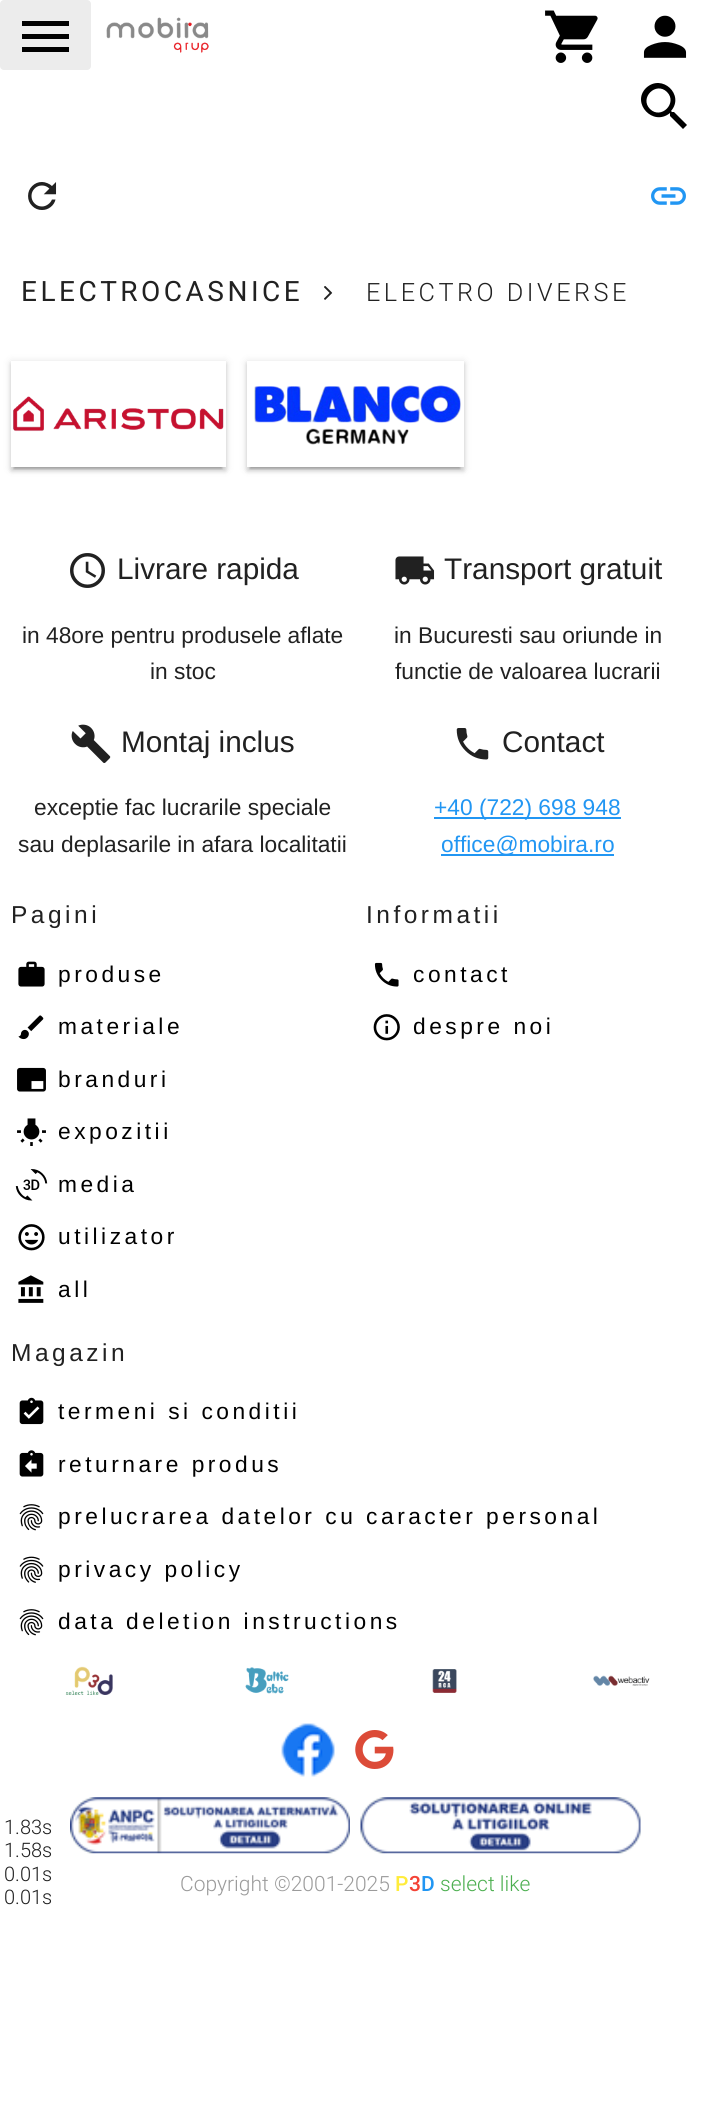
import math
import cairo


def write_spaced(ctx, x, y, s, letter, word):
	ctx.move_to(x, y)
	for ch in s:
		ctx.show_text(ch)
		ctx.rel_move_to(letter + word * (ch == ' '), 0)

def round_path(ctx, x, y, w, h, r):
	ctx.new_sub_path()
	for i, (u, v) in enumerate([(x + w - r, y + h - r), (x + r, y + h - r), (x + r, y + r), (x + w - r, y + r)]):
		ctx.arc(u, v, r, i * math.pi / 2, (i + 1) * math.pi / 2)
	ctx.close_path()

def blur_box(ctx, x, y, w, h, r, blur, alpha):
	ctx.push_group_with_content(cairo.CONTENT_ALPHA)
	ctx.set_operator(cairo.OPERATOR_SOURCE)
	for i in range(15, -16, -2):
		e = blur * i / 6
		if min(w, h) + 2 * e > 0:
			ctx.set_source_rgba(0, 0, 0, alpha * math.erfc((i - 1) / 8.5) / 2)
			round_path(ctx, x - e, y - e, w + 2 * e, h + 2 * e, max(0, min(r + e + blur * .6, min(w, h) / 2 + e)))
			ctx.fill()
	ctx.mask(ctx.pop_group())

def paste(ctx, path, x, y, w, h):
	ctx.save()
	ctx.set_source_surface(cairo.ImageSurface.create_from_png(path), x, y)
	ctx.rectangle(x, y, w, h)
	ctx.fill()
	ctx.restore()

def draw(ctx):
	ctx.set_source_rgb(1, 1, 1)
	ctx.paint()
	ctx.set_source_rgb(0.925, 0.925, 0.925)
	round_path(ctx, 0, 0, 91, 70, 4)
	ctx.fill()
	ctx.set_source_rgb(0, 0, 0)
	ctx.new_path()
	ctx.move_to(22, 21)
	ctx.line_to(69, 21)
	ctx.line_to(69, 26)
	ctx.line_to(22, 26)
	ctx.close_path()
	ctx.move_to(22, 39)
	ctx.line_to(22, 34)
	ctx.line_to(69, 34)
	ctx.line_to(69, 39)
	ctx.close_path()
	ctx.move_to(22, 52)
	ctx.line_to(22, 47)
	ctx.line_to(69, 47)
	ctx.line_to(69, 52)
	ctx.close_path()
	ctx.fill()
	paste(ctx, 'media/1.png', 106, 17, 103, 36)
	paste(ctx, 'media/2.png', 545, 10, 53, 53)
	paste(ctx, 'media/3.png', 643, 15, 44, 43)
	ctx.new_path()
	ctx.move_to(650, 109)
	ctx.curve_to(661, 120, 678, 103, 667, 92)
	ctx.curve_to(656, 81, 639, 98, 650, 109)
	ctx.close_path()
	ctx.move_to(674, 112)
	ctx.line_to(687, 125)
	ctx.line_to(683, 129)
	ctx.line_to(670, 116)
	ctx.line_to(670, 114)
	ctx.line_to(670, 113)
	ctx.curve_to(653, 127, 631, 103, 646, 88)
	ctx.curve_to(662, 73, 685, 95, 671, 111)
	ctx.line_to(672, 112)
	ctx.close_path()
	ctx.fill()
	paste(ctx, 'media/4.png', 28, 182, 29, 28)
	paste(ctx, 'media/5.png', 651, 187, 35, 18)
	ctx.select_font_face('Roboto')
	ctx.set_font_size(28)
	ctx.set_source_rgb(0.129, 0.129, 0.129)
	write_spaced(ctx, 21, 301, 'ELECTROCASNICE', 3.5, 0)
	paste(ctx, 'media/6.png', 324, 286, 9, 14)
	ctx.select_font_face('Roboto Light')
	ctx.set_font_size(25.25)
	write_spaced(ctx, 366, 301, 'ELECTRO DIVERSE', 3.5, 0)
	ctx.save()
	ctx.set_fill_rule(cairo.FILL_RULE_EVEN_ODD)
	ctx.new_path()
	ctx.move_to(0, 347)
	ctx.line_to(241, 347)
	ctx.line_to(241, 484)
	ctx.line_to(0, 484)
	ctx.close_path()
	ctx.move_to(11, 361)
	ctx.line_to(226, 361)
	ctx.line_to(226, 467)
	ctx.line_to(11, 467)
	ctx.close_path()
	ctx.clip()
	ctx.set_source_rgb(0, 0, 0)
	blur_box(ctx, 11, 362, 215, 107, 0, 4.5, 0.12)
	ctx.restore()
	ctx.save()
	ctx.rectangle(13, 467, 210, 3)
	ctx.clip()
	ctx.set_source_rgb(0, 0, 0)
	blur_box(ctx, 14, 369, 208, 100, 0, 1, 0.2)
	ctx.restore()
	ctx.save()
	ctx.set_fill_rule(cairo.FILL_RULE_EVEN_ODD)
	ctx.new_path()
	ctx.move_to(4, 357)
	ctx.line_to(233, 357)
	ctx.line_to(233, 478)
	ctx.line_to(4, 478)
	ctx.close_path()
	ctx.move_to(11, 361)
	ctx.line_to(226, 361)
	ctx.line_to(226, 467)
	ctx.line_to(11, 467)
	ctx.close_path()
	ctx.clip()
	ctx.set_source_rgb(0, 0, 0)
	blur_box(ctx, 11, 364, 215, 107, 0, 2, 0.14)
	ctx.restore()
	paste(ctx, 'media/7.png', 13, 396, 211, 36)
	ctx.save()
	ctx.set_fill_rule(cairo.FILL_RULE_EVEN_ODD)
	ctx.new_path()
	ctx.move_to(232, 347)
	ctx.line_to(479, 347)
	ctx.line_to(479, 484)
	ctx.line_to(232, 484)
	ctx.close_path()
	ctx.move_to(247, 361)
	ctx.line_to(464, 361)
	ctx.line_to(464, 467)
	ctx.line_to(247, 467)
	ctx.close_path()
	ctx.clip()
	ctx.set_source_rgb(0, 0, 0)
	blur_box(ctx, 247, 362, 217, 107, 0, 4.5, 0.12)
	ctx.restore()
	ctx.save()
	ctx.rectangle(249, 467, 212, 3)
	ctx.clip()
	ctx.set_source_rgb(0, 0, 0)
	blur_box(ctx, 250, 369, 210, 100, 0, 1, 0.2)
	ctx.restore()
	ctx.save()
	ctx.set_fill_rule(cairo.FILL_RULE_EVEN_ODD)
	ctx.new_path()
	ctx.move_to(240, 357)
	ctx.line_to(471, 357)
	ctx.line_to(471, 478)
	ctx.line_to(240, 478)
	ctx.close_path()
	ctx.move_to(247, 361)
	ctx.line_to(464, 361)
	ctx.line_to(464, 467)
	ctx.line_to(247, 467)
	ctx.close_path()
	ctx.clip()
	ctx.set_source_rgb(0, 0, 0)
	blur_box(ctx, 247, 364, 217, 107, 0, 2, 0.14)
	ctx.restore()
	paste(ctx, 'media/8.png', 254, 385, 208, 60)
	paste(ctx, 'media/9.png', 70, 553, 35, 35)
	ctx.select_font_face('Liberation Sans')
	ctx.set_font_size(29.75)
	ctx.move_to(117, 579)
	ctx.show_text('Livrare rapida')
	ctx.set_font_size(22.75)
	ctx.move_to(22, 643)
	ctx.show_text('in 48ore pentru produsele aflate')
	ctx.move_to(150, 679)
	ctx.show_text('in stoc')
	paste(ctx, 'media/10.png', 395, 556, 40, 29)
	ctx.set_font_size(29.75)
	ctx.move_to(444, 579)
	ctx.show_text('Transport gratuit')
	ctx.set_font_size(22.75)
	ctx.move_to(394, 643)
	ctx.show_text('in Bucuresti sau oriunde in')
	ctx.move_to(395, 679)
	ctx.show_text('functie de valoarea lucrarii')
	paste(ctx, 'media/11.png', 71, 724, 40, 39)
	ctx.set_font_size(29.75)
	ctx.move_to(121, 752)
	ctx.show_text('Montaj inclus')
	ctx.set_font_size(22.75)
	ctx.move_to(34, 815)
	ctx.show_text('exceptie fac lucrarile speciale')
	ctx.move_to(18, 852)
	ctx.show_text('sau deplasarile in afara localitatii')
	paste(ctx, 'media/12.png', 456, 728, 33, 32)
	ctx.set_font_size(29.75)
	ctx.move_to(502, 752)
	ctx.show_text('Contact')
	ctx.set_source_rgb(0.129, 0.588, 0.953)
	ctx.rectangle(434, 817, 187, 2)
	ctx.fill()
	ctx.set_font_size(22.75)
	ctx.move_to(434, 815)
	ctx.show_text('+40 (722) 698 948')
	ctx.rectangle(441, 854, 173, 2)
	ctx.fill()
	ctx.move_to(441, 852)
	ctx.show_text('office@mobira.ro')
	ctx.set_font_size(24.5)
	ctx.set_source_rgb(0.129, 0.129, 0.129)
	write_spaced(ctx, 11, 923, 'Pagini', 3.5, 0)
	paste(ctx, 'media/13.png', 18, 961, 27, 26)
	ctx.set_font_size(22.75)
	ctx.set_source_rgb(0, 0, 0)
	write_spaced(ctx, 58, 982, 'produse', 3.5, 0)
	paste(ctx, 'media/14.png', 18, 1015, 26, 25)
	write_spaced(ctx, 58, 1034, 'materiale', 3.5, 0)
	paste(ctx, 'media/15.png', 17, 1067, 29, 25)
	write_spaced(ctx, 58, 1087, 'branduri', 3.5, 0)
	paste(ctx, 'media/16.png', 17, 1118, 29, 28)
	write_spaced(ctx, 58, 1139, 'expozitii', 3.5, 0)
	paste(ctx, 'media/17.png', 15, 1169, 33, 32)
	write_spaced(ctx, 58, 1192, 'media', 3.5, 0)
	paste(ctx, 'media/18.png', 18, 1224, 27, 27)
	write_spaced(ctx, 58, 1244, 'utilizator', 3.5, 0)
	paste(ctx, 'media/19.png', 18, 1275, 26, 28)
	write_spaced(ctx, 58, 1297, 'all', 3.5, 0)
	ctx.set_font_size(24.5)
	ctx.set_source_rgb(0.129, 0.129, 0.129)
	write_spaced(ctx, 366, 923, 'Informatii', 3.5, 0)
	paste(ctx, 'media/20.png', 374, 962, 25, 25)
	ctx.set_font_size(22.75)
	ctx.set_source_rgb(0, 0, 0)
	write_spaced(ctx, 413, 982, 'contact', 3.5, 0)
	paste(ctx, 'media/21.png', 373, 1014, 27, 27)
	write_spaced(ctx, 413, 1034, 'despre noi', 3.5, 0)
	ctx.set_font_size(24.5)
	ctx.set_source_rgb(0.129, 0.129, 0.129)
	write_spaced(ctx, 11, 1361, 'Magazin', 3.5, 0)
	paste(ctx, 'media/22.png', 19, 1397, 25, 28)
	ctx.set_font_size(22.75)
	ctx.set_source_rgb(0, 0, 0)
	write_spaced(ctx, 58, 1419, 'termeni si conditii', 3.5, 0)
	paste(ctx, 'media/23.png', 19, 1450, 25, 27)
	write_spaced(ctx, 58, 1472, 'returnare produs', 3.5, 0)
	paste(ctx, 'media/24.png', 19, 1504, 25, 27)
	write_spaced(ctx, 58, 1524, 'prelucrarea datelor cu caracter personal', 3.5, 0)
	paste(ctx, 'media/25.png', 19, 1556, 25, 27)
	write_spaced(ctx, 58, 1577, 'privacy policy', 3.5, 0)
	paste(ctx, 'media/24.png', 19, 1609, 25, 27)
	write_spaced(ctx, 58, 1629, 'data deletion instructions', 3.5, 0)
	paste(ctx, 'media/26.png', 65, 1666, 48, 29)
	paste(ctx, 'media/27.png', 245, 1667, 44, 27)
	paste(ctx, 'media/28.png', 432, 1669, 25, 24)
	paste(ctx, 'media/29.png', 593, 1675, 57, 11)
	paste(ctx, 'media/30.png', 281, 1723, 54, 54)
	paste(ctx, 'media/31.png', 355, 1730, 39, 39)
	paste(ctx, 'media/32.png', 70, 1797, 280, 57)
	paste(ctx, 'media/33.png', 360, 1797, 281, 57)
	ctx.select_font_face('Roboto Light')
	ctx.set_font_size(21)
	ctx.set_source_rgb(0.608, 0.608, 0.608)
	ctx.move_to(180, 1891)
	ctx.show_text('Copyright ©2001-2025')
	ctx.select_font_face('Roboto Medium')
	ctx.set_source_rgb(1, 0.922, 0.231)
	ctx.move_to(395, 1891)
	ctx.show_text('P')
	ctx.set_source_rgb(0.957, 0.263, 0.212)
	ctx.move_to(409, 1891)
	ctx.show_text('3')
	ctx.set_source_rgb(0.129, 0.588, 0.953)
	ctx.move_to(421, 1891)
	ctx.show_text('D')
	ctx.select_font_face('Roboto Light')
	ctx.set_source_rgb(0.298, 0.686, 0.314)
	ctx.move_to(440, 1891)
	ctx.show_text('select like')
	ctx.set_font_size(20)
	ctx.set_source_rgb(0.129, 0.129, 0.129)
	for x, y, s in [
		(4, 1834, '1.83s'),
		(4, 1857, '1.58s'),
		(4, 1881, '0.01s'),
		(4, 1904, '0.01s'),
	]:
		ctx.move_to(x, y)
		ctx.show_text(s)


surface = cairo.ImageSurface(cairo.FORMAT_RGB24, 710, 2107)
ctx = cairo.Context(surface)
options = cairo.FontOptions()
options.set_hint_metrics(cairo.HINT_METRICS_OFF)
options.set_hint_style(cairo.HINT_STYLE_NONE)
ctx.set_font_options(options)
ctx.set_miter_limit(4)
draw(ctx)
surface.write_to_png('image.png')
